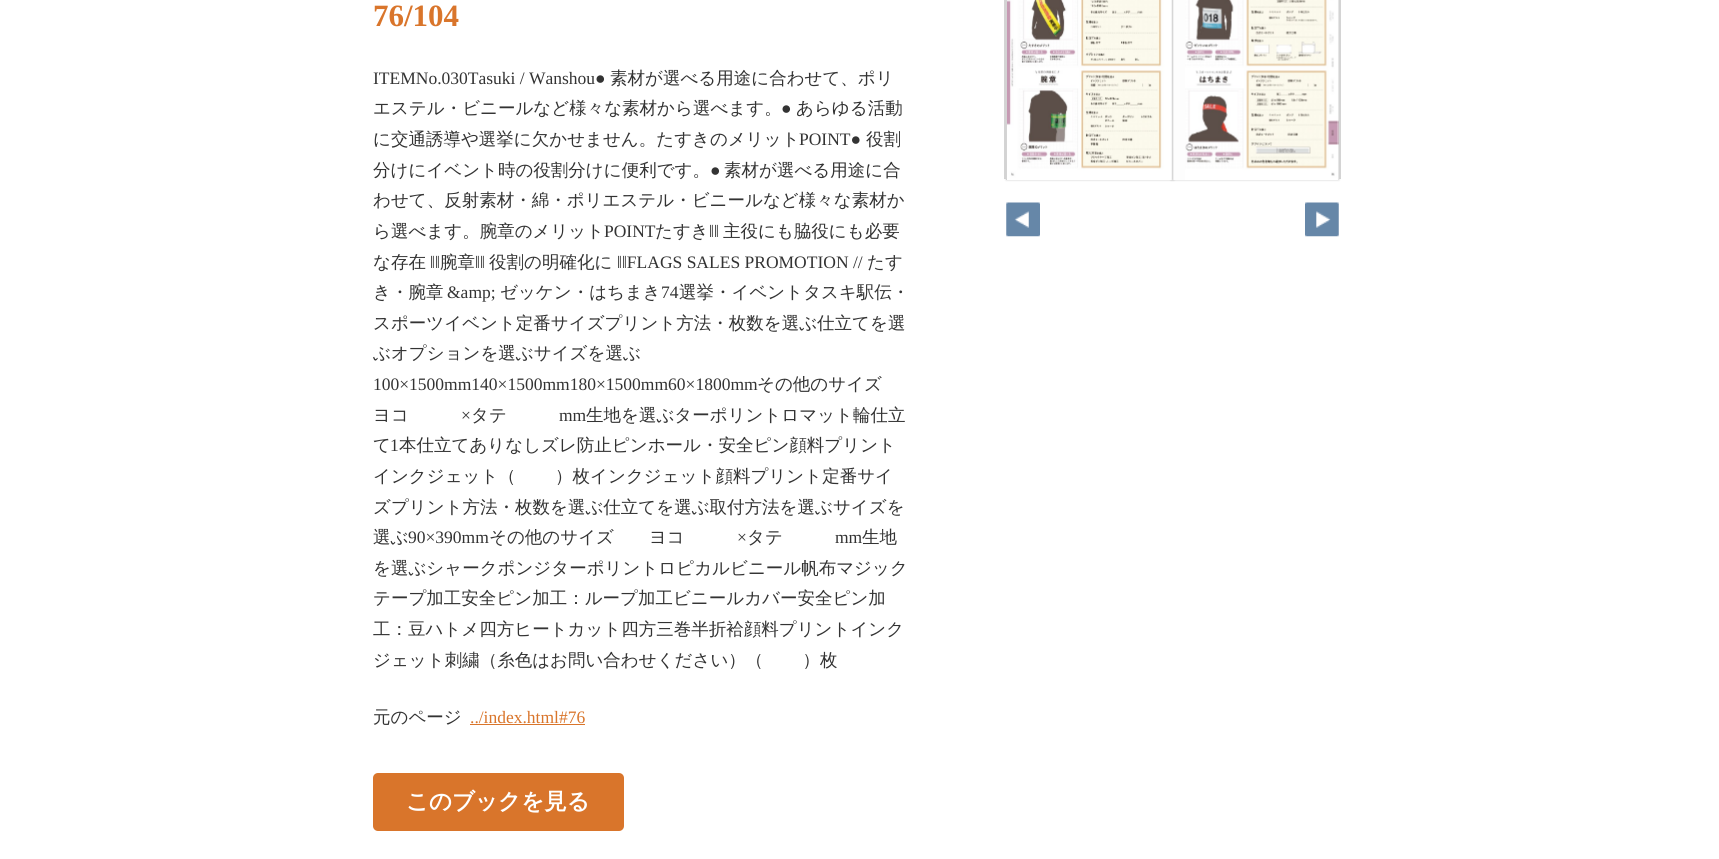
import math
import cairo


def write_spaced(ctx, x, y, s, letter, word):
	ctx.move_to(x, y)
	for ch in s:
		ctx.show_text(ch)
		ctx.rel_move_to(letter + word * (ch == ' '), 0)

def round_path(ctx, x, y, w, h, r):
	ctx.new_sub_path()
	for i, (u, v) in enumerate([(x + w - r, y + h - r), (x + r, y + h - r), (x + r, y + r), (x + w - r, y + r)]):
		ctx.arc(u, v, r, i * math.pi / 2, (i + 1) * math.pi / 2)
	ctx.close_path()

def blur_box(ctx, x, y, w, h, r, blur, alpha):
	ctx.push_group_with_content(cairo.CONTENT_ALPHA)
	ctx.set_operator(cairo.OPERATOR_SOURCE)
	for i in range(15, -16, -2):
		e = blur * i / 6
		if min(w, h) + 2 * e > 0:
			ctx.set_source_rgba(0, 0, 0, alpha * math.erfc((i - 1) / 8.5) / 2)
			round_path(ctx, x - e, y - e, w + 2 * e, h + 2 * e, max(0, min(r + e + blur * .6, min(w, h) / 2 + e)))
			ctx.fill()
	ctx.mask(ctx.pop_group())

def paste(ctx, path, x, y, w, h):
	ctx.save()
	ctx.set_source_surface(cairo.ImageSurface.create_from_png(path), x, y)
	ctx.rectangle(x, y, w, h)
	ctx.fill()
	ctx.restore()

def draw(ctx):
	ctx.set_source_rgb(1, 1, 1)
	ctx.paint()
	ctx.select_font_face('Liberation Serif', cairo.FONT_SLANT_NORMAL, cairo.FONT_WEIGHT_BOLD)
	ctx.set_font_size(31)
	ctx.set_source_rgb(0.851, 0.459, 0.169)
	ctx.move_to(373, 26)
	ctx.show_text('76/104')
	ctx.select_font_face('Liberation Serif')
	ctx.set_font_size(17.5)
	ctx.set_source_rgb(0.2, 0.2, 0.2)
	ctx.move_to(373, 84)
	ctx.show_text('ITEMNo.030Tasuki / Wanshou●')
	ctx.select_font_face('WenQuanYi Zen Hei Medium')
	ctx.move_to(610, 84)
	ctx.show_text('素材が選べる用途に合わせて、ポリ')
	ctx.move_to(373, 114)
	ctx.show_text('エステル・ビニールなど様々な素材から選べます。')
	ctx.select_font_face('Liberation Serif')
	ctx.move_to(781, 114)
	ctx.show_text('●')
	ctx.select_font_face('WenQuanYi Zen Hei Medium')
	ctx.move_to(796, 114)
	ctx.show_text('あらゆる活動')
	ctx.move_to(373, 145)
	ctx.show_text('に交通誘導や選挙に欠かせません。たすきのメリット')
	ctx.select_font_face('Liberation Serif')
	ctx.move_to(799, 145)
	ctx.show_text('POINT●')
	ctx.select_font_face('WenQuanYi Zen Hei Medium')
	ctx.move_to(866, 145)
	ctx.show_text('役割')
	ctx.move_to(373, 176)
	ctx.show_text('分けにイベント時の役割分けに便利です。')
	ctx.select_font_face('Liberation Serif')
	ctx.move_to(710, 176)
	ctx.show_text('●')
	ctx.select_font_face('WenQuanYi Zen Hei Medium')
	for x, y, s in [
		(724, 176, '素材が選べる用途に合'),
		(373, 206, 'わせて、反射素材・綿・ポリエステル・ビニールなど様々な素材か'),
		(373, 237, 'ら選べます。腕章のメリット'),
	]:
		ctx.move_to(x, y)
		ctx.show_text(s)
	ctx.select_font_face('Liberation Serif')
	ctx.move_to(604, 237)
	ctx.show_text('POINT')
	ctx.select_font_face('WenQuanYi Zen Hei Medium')
	ctx.move_to(655, 237)
	ctx.show_text('たすき')
	ctx.select_font_face('Liberation Serif')
	ctx.move_to(709, 237)
	ctx.show_text('‖‖')
	ctx.select_font_face('WenQuanYi Zen Hei Medium')
	ctx.move_to(723, 237)
	ctx.show_text('主役にも脇役にも必要')
	ctx.move_to(373, 268)
	ctx.show_text('な存在')
	ctx.select_font_face('Liberation Serif')
	ctx.move_to(430, 268)
	ctx.show_text('‖‖')
	ctx.select_font_face('WenQuanYi Zen Hei Medium')
	ctx.move_to(440, 268)
	ctx.show_text('腕章')
	ctx.select_font_face('Liberation Serif')
	ctx.move_to(475, 268)
	ctx.show_text('‖‖')
	ctx.select_font_face('WenQuanYi Zen Hei Medium')
	ctx.move_to(489, 268)
	ctx.show_text('役割の明確化に')
	ctx.select_font_face('Liberation Serif')
	ctx.move_to(617, 268)
	ctx.show_text('‖‖FLAGS SALES PROMOTION //')
	ctx.select_font_face('WenQuanYi Zen Hei Medium')
	ctx.move_to(867, 268)
	ctx.show_text('たす')
	ctx.move_to(373, 298)
	ctx.show_text('き・腕章')
	ctx.select_font_face('Liberation Serif')
	ctx.move_to(447, 298)
	ctx.show_text('&amp;')
	ctx.select_font_face('WenQuanYi Zen Hei Medium')
	ctx.move_to(500, 298)
	ctx.show_text('ゼッケン・はちまき')
	ctx.select_font_face('Liberation Serif')
	ctx.move_to(661, 298)
	ctx.show_text('74')
	ctx.select_font_face('WenQuanYi Zen Hei Medium')
	for x, y, s in [
		(679, 298, '選挙・イベントタスキ駅伝・'),
		(373, 329, 'スポーツイベント定番サイズプリント方法・枚数を選ぶ仕立てを選'),
		(373, 359, 'ぶオプションを選ぶサイズを選ぶ'),
	]:
		ctx.move_to(x, y)
		ctx.show_text(s)
	ctx.select_font_face('Liberation Serif')
	ctx.move_to(373, 390)
	ctx.show_text('100×1500mm140×1500mm180×1500mm60×1800mm')
	ctx.select_font_face('WenQuanYi Zen Hei Medium')
	ctx.move_to(757, 390)
	ctx.show_text('その他のサイズ')
	ctx.move_to(373, 421)
	ctx.show_text('ヨコ')
	ctx.select_font_face('Liberation Serif')
	ctx.move_to(461, 421)
	ctx.show_text('×')
	ctx.select_font_face('WenQuanYi Zen Hei Medium')
	ctx.move_to(471, 421)
	ctx.show_text('タテ')
	ctx.select_font_face('Liberation Serif')
	ctx.move_to(559, 421)
	ctx.show_text('mm')
	ctx.select_font_face('WenQuanYi Zen Hei Medium')
	ctx.move_to(586, 421)
	ctx.show_text('生地を選ぶターポリントロマット輪仕立')
	ctx.move_to(373, 451)
	ctx.show_text('て')
	ctx.select_font_face('Liberation Serif')
	ctx.move_to(390, 451)
	ctx.show_text('1')
	ctx.select_font_face('WenQuanYi Zen Hei Medium')
	ctx.move_to(399, 451)
	ctx.show_text('本仕立てありなしズレ防止ピンホール・安全ピン顔料プリント')
	write_spaced(ctx, 373, 482, 'インクジェット（　 　）枚インクジェット顔料プリント定番サイ', 0, -1)
	ctx.move_to(373, 513)
	ctx.show_text('ズプリント方法・枚数を選ぶ仕立てを選ぶ取付方法を選ぶサイズを')
	ctx.move_to(373, 543)
	ctx.show_text('選ぶ')
	ctx.select_font_face('Liberation Serif')
	ctx.move_to(408, 543)
	ctx.show_text('90×390mm')
	ctx.select_font_face('WenQuanYi Zen Hei Medium')
	ctx.move_to(489, 543)
	ctx.show_text('その他のサイズ　　ヨコ')
	ctx.select_font_face('Liberation Serif')
	ctx.move_to(737, 543)
	ctx.show_text('×')
	ctx.select_font_face('WenQuanYi Zen Hei Medium')
	ctx.move_to(747, 543)
	ctx.show_text('タテ')
	ctx.select_font_face('Liberation Serif')
	ctx.move_to(835, 543)
	ctx.show_text('mm')
	ctx.select_font_face('WenQuanYi Zen Hei Medium')
	for x, y, s in [
		(862, 543, '生地'),
		(373, 574, 'を選ぶシャークポンジターポリントロピカルビニール帆布マジック'),
		(373, 604, 'テープ加工安全ピン加工：ループ加工ビニールカバー安全ピン加'),
		(373, 635, '工：豆ハトメ四方ヒートカット四方三巻半折袷顔料プリントインク'),
	]:
		ctx.move_to(x, y)
		ctx.show_text(s)
	write_spaced(ctx, 373, 666, 'ジェット刺繍（糸色はお問い合わせください）（　 　）枚', 0, -1)
	ctx.move_to(373, 723)
	ctx.show_text('元のページ')
	ctx.select_font_face('Liberation Serif')
	ctx.set_source_rgb(0.851, 0.459, 0.169)
	ctx.move_to(470, 723)
	ctx.show_text('../index.html#76')
	ctx.rectangle(470, 724, 115, 1)
	ctx.fill()
	round_path(ctx, 373, 773, 251, 58, 5)
	ctx.fill()
	ctx.select_font_face('WenQuanYi Zen Hei', cairo.FONT_SLANT_NORMAL, cairo.FONT_WEIGHT_BOLD)
	ctx.set_font_size(22.5)
	ctx.set_source_rgb(1, 1, 1)
	ctx.move_to(406, 809)
	ctx.show_text('このブックを見る')
	ctx.set_source_rgb(0, 0, 0)
	blur_box(ctx, 1006, -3, 168, 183, 0, 1, 0.2)
	ctx.rectangle(1004.2, -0.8, 0.6, 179.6)
	ctx.set_source_rgb(0.824, 0.824, 0.824)
	ctx.set_line_width(0.4)
	ctx.stroke()
	ctx.rectangle(1004.2, -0.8, 0.6, 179.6)
	ctx.stroke()
	ctx.rectangle(1005.2, -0.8, 0.6, 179.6)
	ctx.stroke()
	ctx.rectangle(1005.2, -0.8, 0.6, 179.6)
	ctx.stroke()
	ctx.rectangle(1006.2, -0.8, 0.6, 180.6)
	ctx.stroke()
	ctx.set_source_rgb(0.992, 0.992, 0.992)
	ctx.rectangle(1172, 0, 1, 180)
	ctx.fill()
	ctx.set_source_rgb(0, 0, 0)
	blur_box(ctx, 1171, -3, 168, 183, 0, 1, 0.2)
	ctx.rectangle(1338.2, -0.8, 0.6, 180.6)
	ctx.set_source_rgb(0.824, 0.824, 0.824)
	ctx.stroke()
	ctx.rectangle(1339.2, -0.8, 0.6, 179.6)
	ctx.stroke()
	ctx.rectangle(1339.2, -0.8, 0.6, 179.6)
	ctx.stroke()
	ctx.rectangle(1340.2, -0.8, 0.6, 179.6)
	ctx.stroke()
	ctx.rectangle(1340.2, -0.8, 0.6, 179.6)
	ctx.stroke()
	ctx.set_source_rgb(0.992, 0.992, 0.992)
	ctx.rectangle(1173, 0, 165, 180)
	ctx.fill()
	paste(ctx, 'media/1.png', 1007, 0, 166, 180)
	paste(ctx, 'media/2.png', 1171, 0, 2, 180)
	paste(ctx, 'media/3.png', 1173, 0, 1, 180)
	paste(ctx, 'media/4.png', 1185, 0, 154, 180)
	paste(ctx, 'media/5.png', 1006, 202, 34, 35)
	paste(ctx, 'media/6.png', 1305, 202, 34, 35)


surface = cairo.ImageSurface(cairo.FORMAT_RGB24, 1719, 859)
ctx = cairo.Context(surface)
options = cairo.FontOptions()
options.set_hint_metrics(cairo.HINT_METRICS_OFF)
options.set_hint_style(cairo.HINT_STYLE_NONE)
ctx.set_font_options(options)
ctx.set_miter_limit(4)
draw(ctx)
surface.write_to_png('image.png')
